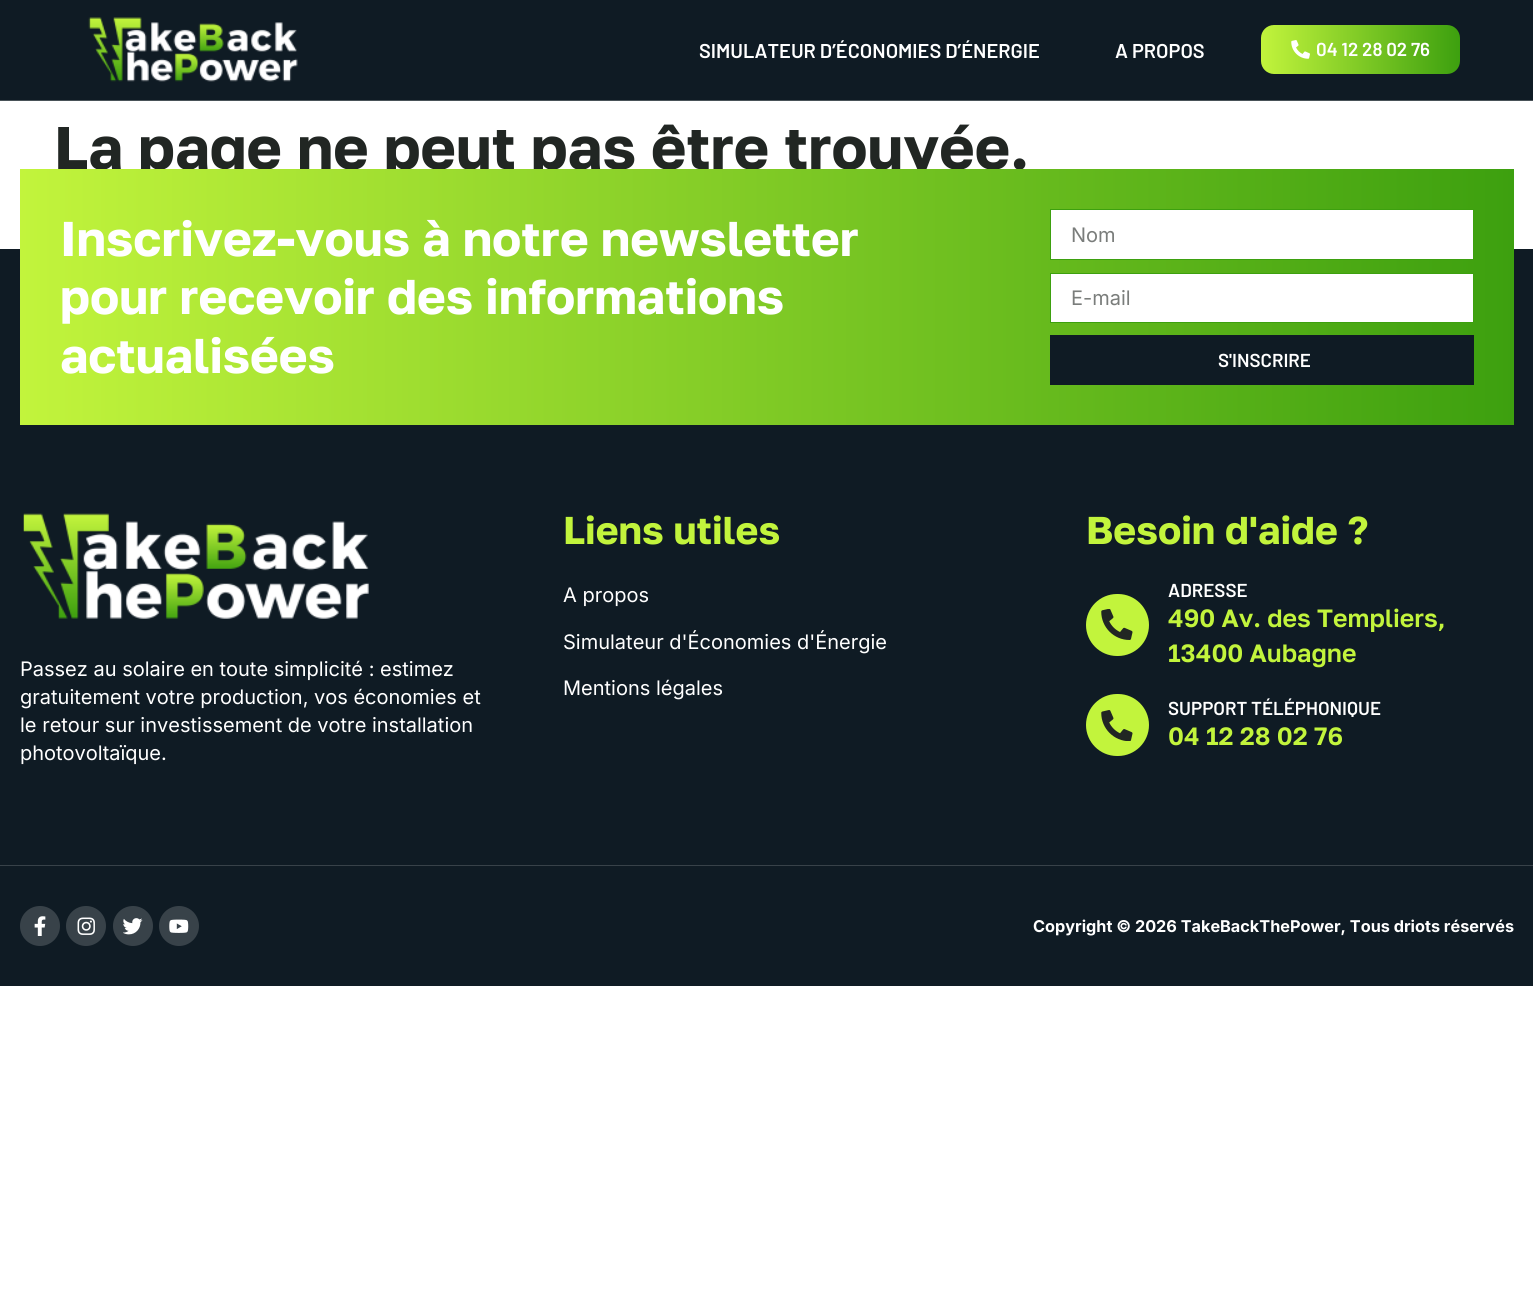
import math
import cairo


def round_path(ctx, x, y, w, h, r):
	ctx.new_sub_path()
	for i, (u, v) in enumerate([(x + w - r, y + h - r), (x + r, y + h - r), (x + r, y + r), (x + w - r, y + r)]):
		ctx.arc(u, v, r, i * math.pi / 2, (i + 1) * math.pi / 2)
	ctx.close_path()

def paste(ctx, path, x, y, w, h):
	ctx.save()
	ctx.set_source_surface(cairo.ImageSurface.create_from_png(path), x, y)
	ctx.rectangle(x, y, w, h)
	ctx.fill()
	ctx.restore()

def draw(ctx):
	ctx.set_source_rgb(1, 1, 1)
	ctx.paint()
	ctx.set_source_rgb(0.059, 0.106, 0.141)
	ctx.rectangle(0, 0, 1533, 100)
	ctx.fill()
	paste(ctx, 'media/1.png', 88, 17, 210, 65)
	ctx.select_font_face('Barlow SemiBold')
	ctx.set_font_size(20)
	ctx.set_source_rgb(1, 1, 1)
	ctx.move_to(699, 58)
	ctx.show_text('SIMULATEUR D’ÉCONOMIES D’ÉNERGIE')
	ctx.move_to(1115, 58)
	ctx.show_text('A PROPOS')
	gradient = cairo.LinearGradient(1261, 49, 1460, 49)
	gradient.add_color_stop_rgba(0, 0.761, 0.957, 0.235, 1)
	gradient.add_color_stop_rgba(1, 0.239, 0.627, 0.059, 1)
	ctx.set_source(gradient)
	round_path(ctx, 1261, 25, 199, 49, 13)
	ctx.fill()
	paste(ctx, 'media/2.png', 1291, 40, 19, 19)
	ctx.set_font_size(18.75)
	ctx.set_source_rgb(1, 1, 1)
	ctx.move_to(1316, 56)
	ctx.show_text('04 12 28 02 76')
	ctx.set_source_rgb(0.286, 0.322, 0.345)
	ctx.rectangle(0, 100, 1533, 1)
	ctx.fill()
	ctx.select_font_face('Golos Text', cairo.FONT_SLANT_NORMAL, cairo.FONT_WEIGHT_BOLD)
	ctx.set_font_size(60)
	ctx.set_source_rgb(0.129, 0.149, 0.137)
	ctx.move_to(54, 169)
	ctx.show_text('La page ne peut pas être trouvée.')
	ctx.set_source_rgb(0.059, 0.106, 0.141)
	ctx.rectangle(0, 249, 1533, 616)
	ctx.fill()
	gradient = cairo.LinearGradient(20, 297, 1514, 297)
	gradient.add_color_stop_rgba(0, 0.761, 0.957, 0.235, 1)
	gradient.add_color_stop_rgba(1, 0.239, 0.627, 0.059, 1)
	ctx.set_source(gradient)
	ctx.rectangle(20, 169, 1494, 256)
	ctx.fill()
	ctx.set_font_size(48.75)
	ctx.set_source_rgb(1, 1, 1)
	for x, y, s in [
		(60, 256, 'Inscrivez-vous à notre newsletter'),
		(60, 314, 'pour recevoir des informations'),
		(60, 373, 'actualisées'),
	]:
		ctx.move_to(x, y)
		ctx.show_text(s)
	ctx.rectangle(1050.5, 209.5, 423, 50)
	ctx.fill_preserve()
	ctx.set_source_rgb(0.239, 0.627, 0.059)
	ctx.set_line_width(1)
	ctx.stroke()
	ctx.select_font_face('Inter')
	ctx.set_font_size(20)
	ctx.set_source_rgb(0.478, 0.49, 0.482)
	ctx.move_to(1071, 242)
	ctx.show_text('Nom')
	ctx.set_source_rgb(1, 1, 1)
	ctx.rectangle(1050.5, 273.5, 423, 49)
	ctx.fill_preserve()
	ctx.set_source_rgb(0.239, 0.627, 0.059)
	ctx.stroke()
	ctx.set_source_rgb(0.478, 0.49, 0.482)
	ctx.move_to(1071, 305)
	ctx.show_text('E-mail')
	ctx.set_source_rgb(0.059, 0.106, 0.141)
	ctx.rectangle(1050, 335, 424, 50)
	ctx.fill()
	ctx.select_font_face('Barlow SemiBold')
	ctx.set_font_size(18.75)
	ctx.set_source_rgb(1, 1, 1)
	ctx.move_to(1218, 367)
	ctx.show_text('S\'INSCRIRE')
	paste(ctx, 'media/3.png', 23, 513, 346, 106)
	ctx.select_font_face('Inter')
	ctx.set_font_size(20)
	for x, y, s in [
		(20, 676, 'Passez au solaire en toute simplicité : estimez'),
		(20, 704, 'gratuitement votre production, vos économies et'),
		(20, 732, 'le retour sur investissement de votre installation'),
		(20, 760, 'photovoltaïque.'),
	]:
		ctx.move_to(x, y)
		ctx.show_text(s)
	ctx.select_font_face('Golos Text', cairo.FONT_SLANT_NORMAL, cairo.FONT_WEIGHT_BOLD)
	ctx.set_font_size(38.75)
	ctx.set_source_rgb(0.761, 0.957, 0.235)
	ctx.move_to(563, 544)
	ctx.show_text('Liens utiles')
	ctx.select_font_face('Inter')
	ctx.set_font_size(20)
	ctx.set_source_rgb(1, 1, 1)
	for x, y, s in [
		(563, 602, 'A propos'),
		(563, 649, 'Simulateur d\'Économies d\'Énergie'),
		(563, 695, 'Mentions légales'),
	]:
		ctx.move_to(x, y)
		ctx.show_text(s)
	ctx.select_font_face('Golos Text', cairo.FONT_SLANT_NORMAL, cairo.FONT_WEIGHT_BOLD)
	ctx.set_font_size(38.75)
	ctx.set_source_rgb(0.761, 0.957, 0.235)
	ctx.move_to(1086, 544)
	ctx.show_text('Besoin d\'aide ?')
	round_path(ctx, 1086, 594, 63, 62, 31)
	ctx.fill()
	paste(ctx, 'media/4.png', 1101, 609, 32, 31)
	ctx.select_font_face('Barlow SemiBold')
	ctx.set_font_size(18.75)
	ctx.set_source_rgb(1, 1, 1)
	ctx.move_to(1168, 597)
	ctx.show_text('ADRESSE')
	ctx.select_font_face('Golos Text SemiBold')
	ctx.set_font_size(25)
	ctx.set_source_rgb(0.761, 0.957, 0.235)
	ctx.move_to(1168, 627)
	ctx.show_text('490 Av. des Templiers,')
	ctx.move_to(1168, 662)
	ctx.show_text('13400 Aubagne')
	round_path(ctx, 1086, 694, 63, 62, 31)
	ctx.fill()
	paste(ctx, 'media/5.png', 1101, 710, 32, 31)
	ctx.select_font_face('Barlow SemiBold')
	ctx.set_font_size(18.75)
	ctx.set_source_rgb(1, 1, 1)
	ctx.move_to(1168, 715)
	ctx.show_text('SUPPORT TÉLÉPHONIQUE')
	ctx.select_font_face('Golos Text SemiBold')
	ctx.set_font_size(25)
	ctx.set_source_rgb(0.761, 0.957, 0.235)
	ctx.move_to(1168, 745)
	ctx.show_text('04 12 28 02 76')
	ctx.set_source_rgb(0.059, 0.106, 0.141)
	ctx.rectangle(0, 866, 1533, 120)
	ctx.fill()
	ctx.set_source_rgb(0.22, 0.259, 0.286)
	ctx.rectangle(0, 865, 1533, 1)
	ctx.fill()
	ctx.arc(40, 926, 20, 0, 2 * math.pi)
	ctx.fill()
	paste(ctx, 'media/6.png', 34, 916, 12, 20)
	ctx.arc(86, 926, 20, 0, 2 * math.pi)
	ctx.fill()
	paste(ctx, 'media/7.png', 77, 917, 18, 18)
	ctx.arc(133, 926, 20, 0, 2 * math.pi)
	ctx.fill()
	paste(ctx, 'media/8.png', 123, 918, 20, 17)
	ctx.arc(179, 926, 20, 0, 2 * math.pi)
	ctx.fill()
	paste(ctx, 'media/9.png', 169, 919, 20, 14)
	ctx.select_font_face('Inter', cairo.FONT_SLANT_NORMAL, cairo.FONT_WEIGHT_BOLD)
	ctx.set_font_size(16.25)
	ctx.set_source_rgb(1, 1, 1)
	ctx.move_to(1033, 932)
	ctx.show_text('Copyright © 2026 TakeBackThePower, Tous driots réservés')


surface = cairo.ImageSurface(cairo.FORMAT_RGB24, 1533, 1299)
ctx = cairo.Context(surface)
options = cairo.FontOptions()
options.set_hint_metrics(cairo.HINT_METRICS_OFF)
options.set_hint_style(cairo.HINT_STYLE_NONE)
ctx.set_font_options(options)
ctx.set_miter_limit(4)
draw(ctx)
surface.write_to_png('image.png')
